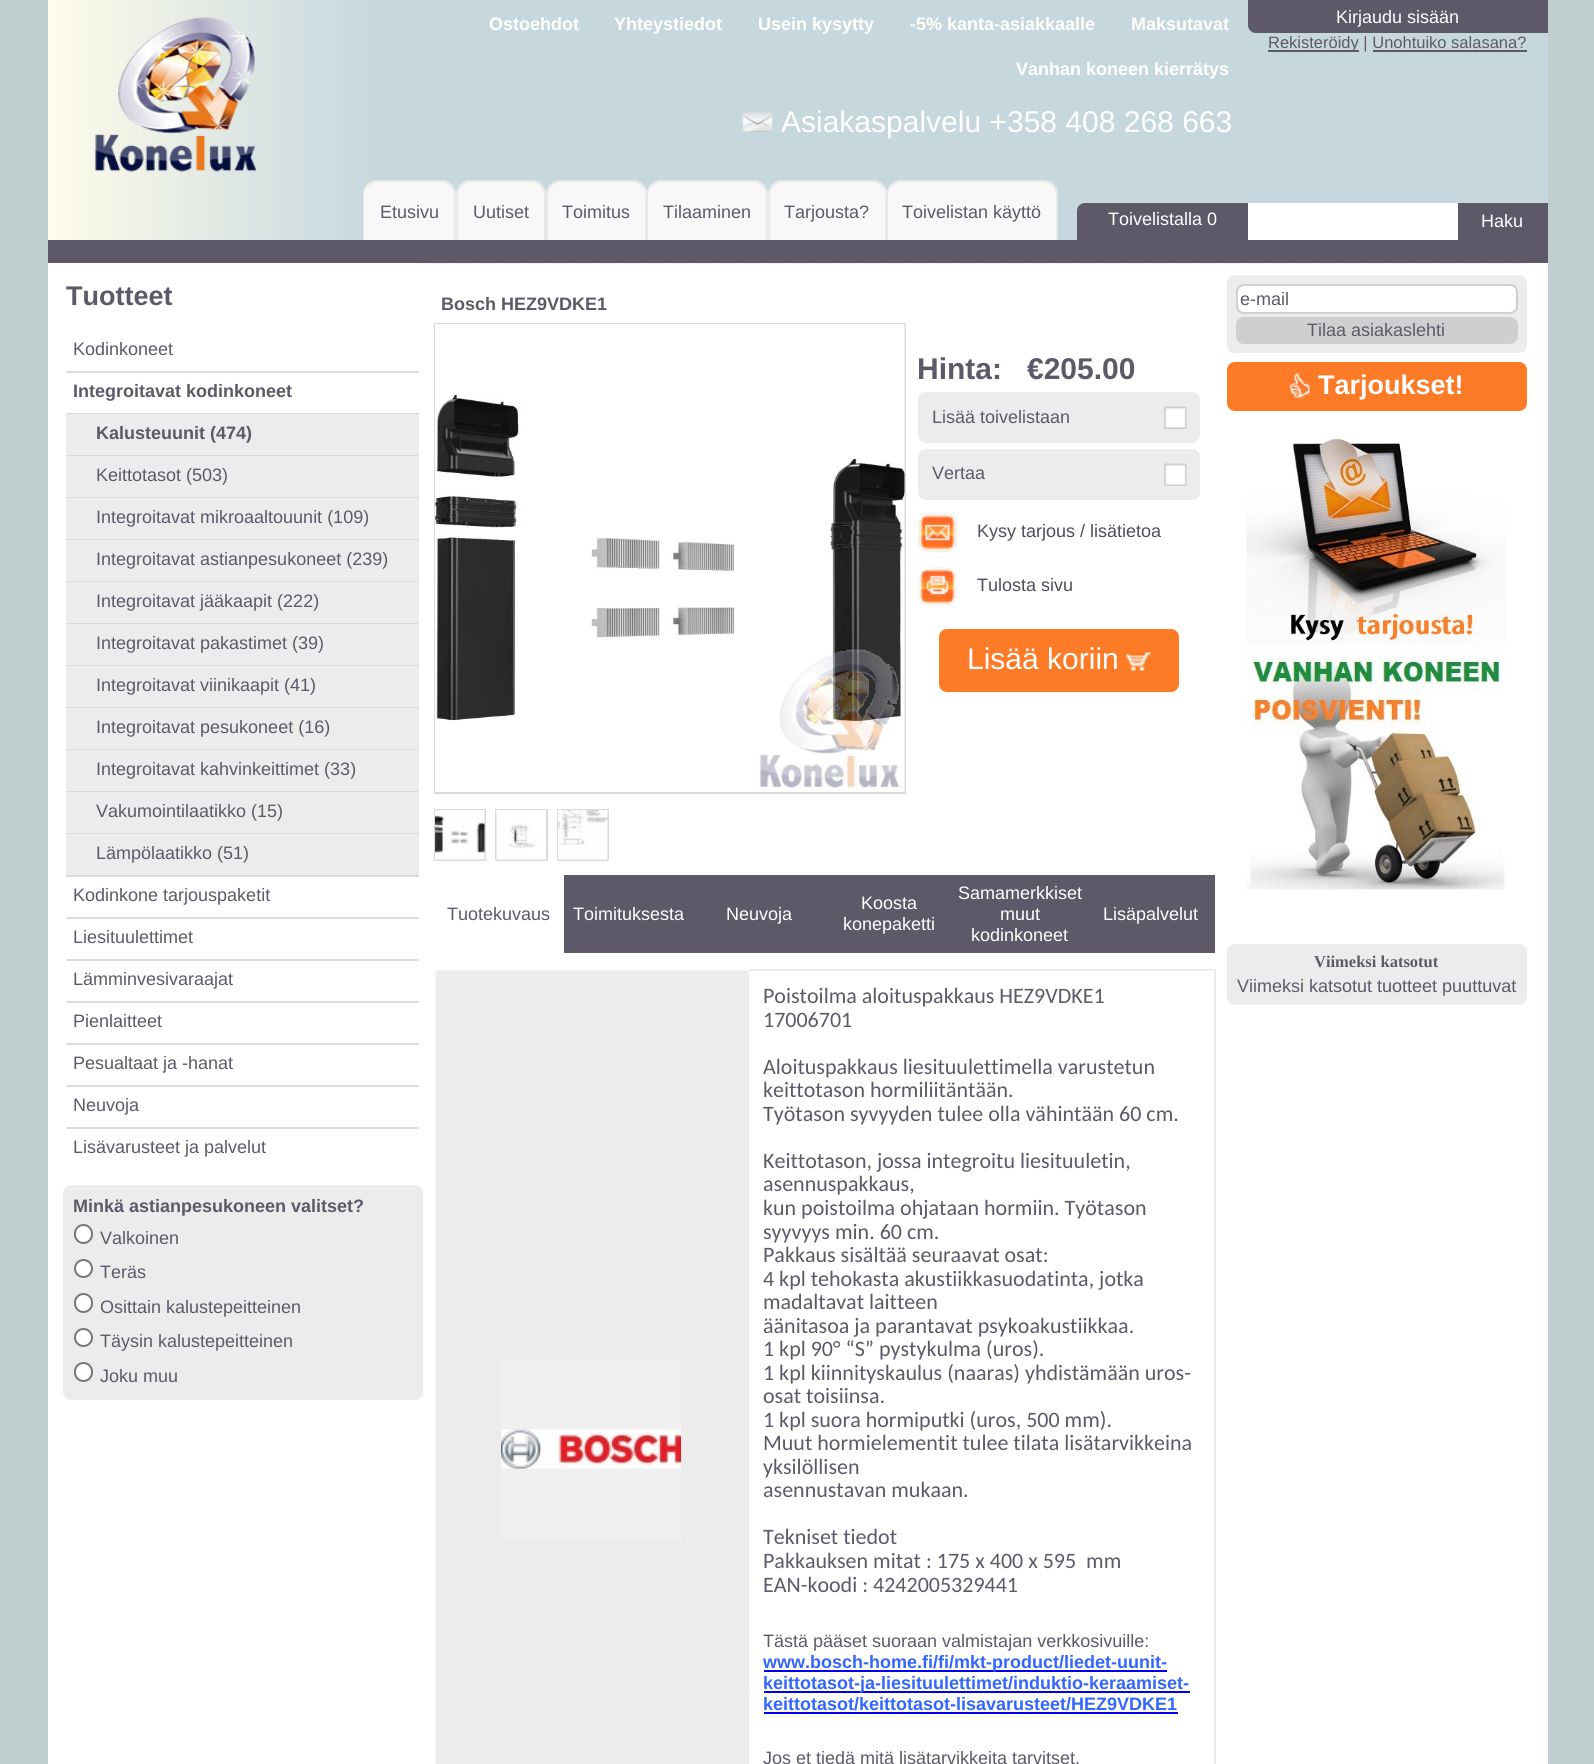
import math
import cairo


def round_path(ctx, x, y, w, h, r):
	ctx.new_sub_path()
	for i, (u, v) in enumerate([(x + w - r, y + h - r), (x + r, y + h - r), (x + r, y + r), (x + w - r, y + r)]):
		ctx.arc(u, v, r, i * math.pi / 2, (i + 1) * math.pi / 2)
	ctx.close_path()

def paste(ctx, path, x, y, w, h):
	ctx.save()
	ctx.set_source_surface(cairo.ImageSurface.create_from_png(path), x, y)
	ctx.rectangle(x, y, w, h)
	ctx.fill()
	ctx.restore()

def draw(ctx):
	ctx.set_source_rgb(0.753, 0.808, 0.812)
	ctx.paint()
	gradient = cairo.LinearGradient(48, 120, 1548, 120)
	gradient.add_color_stop_rgba(0, 0.996, 0.988, 0.918, 1)
	gradient.add_color_stop_rgba(0.22, 0.776, 0.843, 0.871, 1)
	ctx.set_source(gradient)
	ctx.rectangle(48, 0, 1500, 240)
	ctx.fill()
	ctx.set_source_rgb(0.365, 0.349, 0.408)
	ctx.rectangle(48, 240, 1500, 23)
	ctx.fill()
	paste(ctx, 'media/1.png', 95, 17, 162, 155)
	ctx.select_font_face('Liberation Sans', cairo.FONT_SLANT_NORMAL, cairo.FONT_WEIGHT_BOLD)
	ctx.set_font_size(18)
	ctx.set_source_rgb(1, 1, 1)
	for x, y, s in [
		(489, 30, 'Ostoehdot'),
		(614, 30, 'Yhteystiedot'),
		(758, 30, 'Usein kysytty'),
		(910, 30, '-5% kanta-asiakkaalle'),
		(1131, 30, 'Maksutavat'),
		(1016, 75, 'Vanhan koneen kierrätys'),
	]:
		ctx.move_to(x, y)
		ctx.show_text(s)
	paste(ctx, 'media/2.png', 742, 112, 31, 20)
	ctx.select_font_face('Liberation Sans')
	ctx.set_font_size(30)
	ctx.move_to(781, 132)
	ctx.show_text('Asiakaspalvelu +358 408 268 663')
	ctx.set_source_rgb(0.365, 0.349, 0.408)
	ctx.new_path()
	ctx.move_to(1248, 0)
	ctx.line_to(1548, 0)
	ctx.line_to(1548, 33)
	ctx.line_to(1256, 33)
	ctx.curve_to(1251.5, 33, 1248, 29.5, 1248, 25)
	ctx.close_path()
	ctx.fill()
	ctx.set_font_size(18)
	ctx.set_source_rgb(1, 1, 1)
	ctx.move_to(1336, 23)
	ctx.show_text('Kirjaudu sisään')
	ctx.set_source_rgb(0.365, 0.349, 0.408)
	ctx.rectangle(1268, 50, 91, 2)
	ctx.fill()
	ctx.set_font_size(16.5)
	ctx.move_to(1268, 48)
	ctx.show_text('Rekisteröidy | Unohtuiko salasana?')
	ctx.rectangle(1373, 50, 154, 2)
	ctx.fill()
	ctx.set_source_rgb(0.969, 0.969, 0.969)
	ctx.new_path()
	ctx.move_to(378, 180)
	ctx.line_to(441, 180)
	ctx.curve_to(449.5, 180, 456, 186.5, 456, 195)
	ctx.line_to(456, 240)
	ctx.line_to(363, 240)
	ctx.line_to(363, 195)
	ctx.curve_to(363, 186.5, 369.5, 180, 378, 180)
	ctx.close_path()
	ctx.fill()
	ctx.set_source_rgb(0.91, 0.91, 0.91)
	ctx.set_fill_rule(cairo.FILL_RULE_EVEN_ODD)
	ctx.new_path()
	ctx.move_to(378, 180)
	ctx.line_to(441, 180)
	ctx.curve_to(449, 180, 456, 187, 456, 195)
	ctx.line_to(456, 240)
	ctx.line_to(363, 240)
	ctx.line_to(363, 195)
	ctx.curve_to(363, 187, 370, 180, 378, 180)
	ctx.close_path()
	ctx.move_to(378, 182)
	ctx.line_to(441, 182)
	ctx.curve_to(448, 182, 454, 188, 454, 195)
	ctx.line_to(454, 240)
	ctx.line_to(364, 240)
	ctx.line_to(364, 195)
	ctx.curve_to(364, 188, 371, 182, 378, 182)
	ctx.close_path()
	ctx.fill()
	ctx.set_font_size(18)
	ctx.set_source_rgb(0.365, 0.349, 0.408)
	ctx.move_to(380, 218)
	ctx.show_text('Etusivu')
	ctx.set_source_rgb(0.969, 0.969, 0.969)
	ctx.new_path()
	ctx.move_to(471, 180)
	ctx.line_to(531, 180)
	ctx.curve_to(539.5, 180, 546, 186.5, 546, 195)
	ctx.line_to(546, 240)
	ctx.line_to(456, 240)
	ctx.line_to(456, 195)
	ctx.curve_to(456, 186.5, 462.5, 180, 471, 180)
	ctx.close_path()
	ctx.fill()
	ctx.set_source_rgb(0.91, 0.91, 0.91)
	ctx.new_path()
	ctx.move_to(471, 180)
	ctx.line_to(531, 180)
	ctx.curve_to(539, 180, 546, 187, 546, 195)
	ctx.line_to(546, 240)
	ctx.line_to(456, 240)
	ctx.line_to(456, 195)
	ctx.curve_to(456, 187, 463, 180, 471, 180)
	ctx.close_path()
	ctx.move_to(471, 182)
	ctx.line_to(531, 182)
	ctx.curve_to(538, 182, 544, 188, 544, 195)
	ctx.line_to(544, 240)
	ctx.line_to(458, 240)
	ctx.line_to(458, 195)
	ctx.curve_to(458, 188, 464, 182, 471, 182)
	ctx.close_path()
	ctx.fill()
	ctx.set_source_rgb(0.365, 0.349, 0.408)
	ctx.move_to(473, 218)
	ctx.show_text('Uutiset')
	ctx.set_source_rgb(0.969, 0.969, 0.969)
	ctx.new_path()
	ctx.move_to(561, 180)
	ctx.line_to(632, 180)
	ctx.curve_to(640.5, 180, 647, 186.5, 647, 195)
	ctx.line_to(647, 240)
	ctx.line_to(546, 240)
	ctx.line_to(546, 195)
	ctx.curve_to(546, 186.5, 552.5, 180, 561, 180)
	ctx.close_path()
	ctx.fill()
	ctx.set_source_rgb(0.91, 0.91, 0.91)
	ctx.new_path()
	ctx.move_to(561, 180)
	ctx.line_to(632, 180)
	ctx.curve_to(640, 180, 646, 187, 646, 195)
	ctx.line_to(646, 240)
	ctx.line_to(546, 240)
	ctx.line_to(546, 195)
	ctx.curve_to(546, 187, 553, 180, 561, 180)
	ctx.close_path()
	ctx.move_to(561, 182)
	ctx.line_to(632, 182)
	ctx.curve_to(639, 182, 645, 188, 645, 195)
	ctx.line_to(645, 240)
	ctx.line_to(548, 240)
	ctx.line_to(548, 195)
	ctx.curve_to(548, 188, 554, 182, 561, 182)
	ctx.close_path()
	ctx.fill()
	ctx.set_source_rgb(0.365, 0.349, 0.408)
	ctx.move_to(562, 218)
	ctx.show_text('Toimitus')
	ctx.set_source_rgb(0.969, 0.969, 0.969)
	ctx.new_path()
	ctx.move_to(662, 180)
	ctx.line_to(753, 180)
	ctx.curve_to(761.5, 180, 768, 186.5, 768, 195)
	ctx.line_to(768, 240)
	ctx.line_to(647, 240)
	ctx.line_to(647, 195)
	ctx.curve_to(647, 186.5, 653.5, 180, 662, 180)
	ctx.close_path()
	ctx.fill()
	ctx.set_source_rgb(0.91, 0.91, 0.91)
	ctx.new_path()
	ctx.move_to(662, 180)
	ctx.line_to(753, 180)
	ctx.curve_to(761, 180, 768, 187, 768, 195)
	ctx.line_to(768, 240)
	ctx.line_to(646, 240)
	ctx.line_to(646, 195)
	ctx.curve_to(646, 187, 653, 180, 662, 180)
	ctx.close_path()
	ctx.move_to(662, 182)
	ctx.line_to(753, 182)
	ctx.curve_to(760, 182, 766, 188, 766, 195)
	ctx.line_to(766, 240)
	ctx.line_to(648, 240)
	ctx.line_to(648, 195)
	ctx.curve_to(648, 188, 654, 182, 662, 182)
	ctx.close_path()
	ctx.fill()
	ctx.set_source_rgb(0.365, 0.349, 0.408)
	ctx.move_to(663, 218)
	ctx.show_text('Tilaaminen')
	ctx.set_source_rgb(0.969, 0.969, 0.969)
	ctx.new_path()
	ctx.move_to(783, 180)
	ctx.line_to(872, 180)
	ctx.curve_to(880.5, 180, 887, 186.5, 887, 195)
	ctx.line_to(887, 240)
	ctx.line_to(768, 240)
	ctx.line_to(768, 195)
	ctx.curve_to(768, 186.5, 774.5, 180, 783, 180)
	ctx.close_path()
	ctx.fill()
	ctx.set_source_rgb(0.91, 0.91, 0.91)
	ctx.new_path()
	ctx.move_to(783, 180)
	ctx.line_to(872, 180)
	ctx.curve_to(880, 180, 886, 187, 886, 195)
	ctx.line_to(886, 240)
	ctx.line_to(768, 240)
	ctx.line_to(768, 195)
	ctx.curve_to(768, 187, 775, 180, 783, 180)
	ctx.close_path()
	ctx.move_to(783, 182)
	ctx.line_to(872, 182)
	ctx.curve_to(879, 182, 885, 188, 885, 195)
	ctx.line_to(885, 240)
	ctx.line_to(770, 240)
	ctx.line_to(770, 195)
	ctx.curve_to(770, 188, 776, 182, 783, 182)
	ctx.close_path()
	ctx.fill()
	ctx.set_source_rgb(0.365, 0.349, 0.408)
	ctx.move_to(784, 218)
	ctx.show_text('Tarjousta?')
	ctx.set_source_rgb(0.969, 0.969, 0.969)
	ctx.new_path()
	ctx.move_to(902, 180)
	ctx.line_to(1043, 180)
	ctx.curve_to(1051.5, 180, 1058, 186.5, 1058, 195)
	ctx.line_to(1058, 240)
	ctx.line_to(887, 240)
	ctx.line_to(887, 195)
	ctx.curve_to(887, 186.5, 893.5, 180, 902, 180)
	ctx.close_path()
	ctx.fill()
	ctx.set_source_rgb(0.91, 0.91, 0.91)
	ctx.new_path()
	ctx.move_to(902, 180)
	ctx.line_to(1042, 180)
	ctx.curve_to(1051, 180, 1058, 187, 1058, 195)
	ctx.line_to(1058, 240)
	ctx.line_to(886, 240)
	ctx.line_to(886, 195)
	ctx.curve_to(886, 187, 893, 180, 902, 180)
	ctx.close_path()
	ctx.move_to(902, 182)
	ctx.line_to(1042, 182)
	ctx.curve_to(1050, 182, 1056, 188, 1056, 195)
	ctx.line_to(1056, 240)
	ctx.line_to(888, 240)
	ctx.line_to(888, 195)
	ctx.curve_to(888, 188, 894, 182, 902, 182)
	ctx.close_path()
	ctx.fill()
	ctx.set_source_rgb(0.365, 0.349, 0.408)
	ctx.move_to(902, 218)
	ctx.show_text('Toivelistan käyttö')
	ctx.new_path()
	ctx.move_to(1085, 203)
	ctx.line_to(1248, 203)
	ctx.line_to(1248, 240)
	ctx.line_to(1077, 240)
	ctx.line_to(1077, 211)
	ctx.curve_to(1077, 206.5, 1080.5, 203, 1085, 203)
	ctx.close_path()
	ctx.fill()
	ctx.set_source_rgb(1, 1, 1)
	ctx.move_to(1108, 225)
	ctx.show_text('Toivelistalla 0')
	ctx.rectangle(1248, 203, 210, 37)
	ctx.fill()
	ctx.set_source_rgb(0.365, 0.349, 0.408)
	ctx.rectangle(1458, 203, 90, 37)
	ctx.fill()
	ctx.set_source_rgb(1, 1, 1)
	ctx.move_to(1481, 227)
	ctx.show_text('Haku')
	ctx.rectangle(48, 263, 1500, 1501)
	ctx.fill()
	ctx.select_font_face('Liberation Sans', cairo.FONT_SLANT_NORMAL, cairo.FONT_WEIGHT_BOLD)
	ctx.set_font_size(27)
	ctx.set_source_rgb(0.365, 0.349, 0.408)
	ctx.move_to(66, 305)
	ctx.show_text('Tuotteet')
	ctx.set_source_rgb(0.859, 0.859, 0.859)
	ctx.rectangle(66, 371, 353, 2)
	ctx.fill()
	ctx.select_font_face('Liberation Sans')
	ctx.set_font_size(18)
	ctx.set_source_rgb(0.365, 0.349, 0.408)
	ctx.move_to(73, 355)
	ctx.show_text('Kodinkoneet')
	ctx.set_source_rgb(0.859, 0.859, 0.859)
	ctx.rectangle(66, 413, 353, 1)
	ctx.fill()
	ctx.select_font_face('Liberation Sans', cairo.FONT_SLANT_NORMAL, cairo.FONT_WEIGHT_BOLD)
	ctx.set_source_rgb(0.365, 0.349, 0.408)
	ctx.move_to(73, 397)
	ctx.show_text('Integroitavat kodinkoneet')
	ctx.set_source_rgb(0.922, 0.922, 0.922)
	ctx.rectangle(66, 414, 353, 41)
	ctx.fill()
	ctx.set_source_rgb(0.859, 0.859, 0.859)
	ctx.rectangle(66, 455, 353, 1)
	ctx.fill()
	ctx.set_source_rgb(0.365, 0.349, 0.408)
	ctx.move_to(96, 439)
	ctx.show_text('Kalusteuunit (474)')
	ctx.set_source_rgb(0.922, 0.922, 0.922)
	ctx.rectangle(66, 456, 353, 41)
	ctx.fill()
	ctx.set_source_rgb(0.859, 0.859, 0.859)
	ctx.rectangle(66, 497, 353, 1)
	ctx.fill()
	ctx.select_font_face('Liberation Sans')
	ctx.set_source_rgb(0.365, 0.349, 0.408)
	ctx.move_to(96, 481)
	ctx.show_text('Keittotasot (503)')
	ctx.set_source_rgb(0.922, 0.922, 0.922)
	ctx.rectangle(66, 498, 353, 41)
	ctx.fill()
	ctx.set_source_rgb(0.859, 0.859, 0.859)
	ctx.rectangle(66, 539, 353, 1)
	ctx.fill()
	ctx.set_source_rgb(0.365, 0.349, 0.408)
	ctx.move_to(96, 523)
	ctx.show_text('Integroitavat mikroaaltouunit (109)')
	ctx.set_source_rgb(0.922, 0.922, 0.922)
	ctx.rectangle(66, 540, 353, 41)
	ctx.fill()
	ctx.set_source_rgb(0.859, 0.859, 0.859)
	ctx.rectangle(66, 581, 353, 1)
	ctx.fill()
	ctx.set_source_rgb(0.365, 0.349, 0.408)
	ctx.move_to(96, 565)
	ctx.show_text('Integroitavat astianpesukoneet (239)')
	ctx.set_source_rgb(0.922, 0.922, 0.922)
	ctx.rectangle(66, 582, 353, 41)
	ctx.fill()
	ctx.set_source_rgb(0.859, 0.859, 0.859)
	ctx.rectangle(66, 623, 353, 1)
	ctx.fill()
	ctx.set_source_rgb(0.365, 0.349, 0.408)
	ctx.move_to(96, 607)
	ctx.show_text('Integroitavat jääkaapit (222)')
	ctx.set_source_rgb(0.922, 0.922, 0.922)
	ctx.rectangle(66, 624, 353, 41)
	ctx.fill()
	ctx.set_source_rgb(0.859, 0.859, 0.859)
	ctx.rectangle(66, 665, 353, 1)
	ctx.fill()
	ctx.set_source_rgb(0.365, 0.349, 0.408)
	ctx.move_to(96, 649)
	ctx.show_text('Integroitavat pakastimet (39)')
	ctx.set_source_rgb(0.922, 0.922, 0.922)
	ctx.rectangle(66, 666, 353, 41)
	ctx.fill()
	ctx.set_source_rgb(0.859, 0.859, 0.859)
	ctx.rectangle(66, 707, 353, 1)
	ctx.fill()
	ctx.set_source_rgb(0.365, 0.349, 0.408)
	ctx.move_to(96, 691)
	ctx.show_text('Integroitavat viinikaapit (41)')
	ctx.set_source_rgb(0.922, 0.922, 0.922)
	ctx.rectangle(66, 708, 353, 41)
	ctx.fill()
	ctx.set_source_rgb(0.859, 0.859, 0.859)
	ctx.rectangle(66, 749, 353, 1)
	ctx.fill()
	ctx.set_source_rgb(0.365, 0.349, 0.408)
	ctx.move_to(96, 733)
	ctx.show_text('Integroitavat pesukoneet (16)')
	ctx.set_source_rgb(0.922, 0.922, 0.922)
	ctx.rectangle(66, 750, 353, 41)
	ctx.fill()
	ctx.set_source_rgb(0.859, 0.859, 0.859)
	ctx.rectangle(66, 791, 353, 1)
	ctx.fill()
	ctx.set_source_rgb(0.365, 0.349, 0.408)
	ctx.move_to(96, 775)
	ctx.show_text('Integroitavat kahvinkeittimet (33)')
	ctx.set_source_rgb(0.922, 0.922, 0.922)
	ctx.rectangle(66, 792, 353, 41)
	ctx.fill()
	ctx.set_source_rgb(0.859, 0.859, 0.859)
	ctx.rectangle(66, 833, 353, 1)
	ctx.fill()
	ctx.set_source_rgb(0.365, 0.349, 0.408)
	ctx.move_to(96, 817)
	ctx.show_text('Vakumointilaatikko (15)')
	ctx.set_source_rgb(0.922, 0.922, 0.922)
	ctx.rectangle(66, 834, 353, 41)
	ctx.fill()
	ctx.set_source_rgb(0.859, 0.859, 0.859)
	ctx.rectangle(66, 875, 353, 2)
	ctx.fill()
	ctx.set_source_rgb(0.365, 0.349, 0.408)
	ctx.move_to(96, 859)
	ctx.show_text('Lämpölaatikko (51)')
	ctx.set_source_rgb(0.859, 0.859, 0.859)
	ctx.rectangle(66, 917, 353, 2)
	ctx.fill()
	ctx.set_source_rgb(0.365, 0.349, 0.408)
	ctx.move_to(73, 901)
	ctx.show_text('Kodinkone tarjouspaketit')
	ctx.set_source_rgb(0.859, 0.859, 0.859)
	ctx.rectangle(66, 959, 353, 2)
	ctx.fill()
	ctx.set_source_rgb(0.365, 0.349, 0.408)
	ctx.move_to(73, 943)
	ctx.show_text('Liesituulettimet')
	ctx.set_source_rgb(0.859, 0.859, 0.859)
	ctx.rectangle(66, 1001, 353, 2)
	ctx.fill()
	ctx.set_source_rgb(0.365, 0.349, 0.408)
	ctx.move_to(73, 985)
	ctx.show_text('Lämminvesivaraajat')
	ctx.set_source_rgb(0.859, 0.859, 0.859)
	ctx.rectangle(66, 1043, 353, 2)
	ctx.fill()
	ctx.set_source_rgb(0.365, 0.349, 0.408)
	ctx.move_to(73, 1027)
	ctx.show_text('Pienlaitteet')
	ctx.set_source_rgb(0.859, 0.859, 0.859)
	ctx.rectangle(66, 1085, 353, 2)
	ctx.fill()
	ctx.set_source_rgb(0.365, 0.349, 0.408)
	ctx.move_to(73, 1069)
	ctx.show_text('Pesualtaat ja -hanat')
	ctx.set_source_rgb(0.859, 0.859, 0.859)
	ctx.rectangle(66, 1127, 353, 2)
	ctx.fill()
	ctx.set_source_rgb(0.365, 0.349, 0.408)
	ctx.move_to(73, 1111)
	ctx.show_text('Neuvoja')
	ctx.move_to(73, 1153)
	ctx.show_text('Lisävarusteet ja palvelut')
	ctx.set_source_rgb(0.922, 0.922, 0.922)
	round_path(ctx, 63, 1185, 360, 215, 8)
	ctx.fill()
	ctx.select_font_face('Liberation Sans', cairo.FONT_SLANT_NORMAL, cairo.FONT_WEIGHT_BOLD)
	ctx.set_source_rgb(0.365, 0.349, 0.408)
	ctx.move_to(73, 1212)
	ctx.show_text('Minkä astianpesukoneen valitset?')
	ctx.set_source_rgb(1, 1, 1)
	round_path(ctx, 75, 1225, 17, 18, 8.5)
	ctx.fill_preserve()
	ctx.set_source_rgb(0.463, 0.463, 0.463)
	ctx.stroke()
	ctx.select_font_face('Liberation Sans')
	ctx.set_source_rgb(0.365, 0.349, 0.408)
	ctx.move_to(100, 1244)
	ctx.show_text('Valkoinen')
	ctx.set_source_rgb(1, 1, 1)
	ctx.new_path()
	ctx.arc(83.5, 1268.5, 8.5, 0, 2 * math.pi)
	ctx.fill_preserve()
	ctx.set_source_rgb(0.463, 0.463, 0.463)
	ctx.stroke()
	ctx.set_source_rgb(0.365, 0.349, 0.408)
	ctx.move_to(100, 1278)
	ctx.show_text('Teräs')
	ctx.set_source_rgb(1, 1, 1)
	round_path(ctx, 75, 1294, 17, 18, 8.5)
	ctx.fill_preserve()
	ctx.set_source_rgb(0.463, 0.463, 0.463)
	ctx.stroke()
	ctx.set_source_rgb(0.365, 0.349, 0.408)
	ctx.move_to(100, 1313)
	ctx.show_text('Osittain kalustepeitteinen')
	ctx.set_source_rgb(1, 1, 1)
	ctx.new_path()
	ctx.arc(83.5, 1337.5, 8.5, 0, 2 * math.pi)
	ctx.fill_preserve()
	ctx.set_source_rgb(0.463, 0.463, 0.463)
	ctx.stroke()
	ctx.set_source_rgb(0.365, 0.349, 0.408)
	ctx.move_to(100, 1347)
	ctx.show_text('Täysin kalustepeitteinen')
	ctx.set_source_rgb(1, 1, 1)
	round_path(ctx, 75, 1363, 17, 18, 8.5)
	ctx.fill_preserve()
	ctx.set_source_rgb(0.463, 0.463, 0.463)
	ctx.stroke()
	ctx.set_source_rgb(0.365, 0.349, 0.408)
	ctx.move_to(100, 1382)
	ctx.show_text('Joku muu')
	ctx.save()
	ctx.set_fill_rule(cairo.FILL_RULE_WINDING)
	ctx.rectangle(423, 263, 1119, 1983)
	ctx.clip()
	ctx.new_path()
	ctx.move_to(423, 263)
	ctx.line_to(1527, 263)
	ctx.set_source_rgb(0.859, 0.859, 0.859)
	ctx.set_line_width(1.5)
	ctx.set_dash([1.5, 1.5])
	ctx.stroke()
	ctx.restore()
	ctx.select_font_face('Liberation Sans', cairo.FONT_SLANT_NORMAL, cairo.FONT_WEIGHT_BOLD)
	ctx.move_to(441, 310)
	ctx.show_text('Bosch HEZ9VDKE1')
	ctx.rectangle(435, 324, 470, 469)
	ctx.set_source_rgb(0.859, 0.859, 0.859)
	ctx.stroke()
	paste(ctx, 'media/3.png', 435, 324, 470, 468)
	ctx.rectangle(435, 810, 50, 50)
	ctx.stroke()
	paste(ctx, 'media/4.png', 435, 810, 50, 50)
	ctx.rectangle(496, 810, 51, 50)
	ctx.stroke()
	paste(ctx, 'media/5.png', 496, 810, 50, 50)
	ctx.rectangle(558, 810, 50, 50)
	ctx.stroke()
	paste(ctx, 'media/6.png', 558, 810, 50, 50)
	ctx.set_font_size(30)
	ctx.set_source_rgb(0.365, 0.349, 0.408)
	ctx.move_to(917, 379)
	ctx.show_text('Hinta:   €205.00')
	ctx.set_source_rgb(0.922, 0.922, 0.922)
	round_path(ctx, 918, 392, 282, 51, 8)
	ctx.fill()
	paste(ctx, 'media/7.png', 1164, 406, 23, 23)
	ctx.select_font_face('Liberation Sans')
	ctx.set_font_size(18)
	ctx.set_source_rgb(0.365, 0.349, 0.408)
	ctx.move_to(932, 423)
	ctx.show_text('Lisää toivelistaan')
	ctx.set_source_rgb(0.922, 0.922, 0.922)
	round_path(ctx, 918, 449, 282, 51, 8)
	ctx.fill()
	paste(ctx, 'media/7.png', 1164, 463, 23, 23)
	ctx.set_source_rgb(0.365, 0.349, 0.408)
	ctx.move_to(932, 479)
	ctx.show_text('Vertaa')
	paste(ctx, 'media/8.png', 918, 512, 39, 41)
	ctx.set_source_rgb(0.31, 0.302, 0.357)
	ctx.move_to(977, 537)
	ctx.show_text('Kysy tarjous / lisätietoa')
	paste(ctx, 'media/9.png', 918, 566, 39, 41)
	ctx.move_to(977, 591)
	ctx.show_text('Tulosta sivu')
	ctx.set_source_rgb(0.992, 0.482, 0.153)
	round_path(ctx, 939, 629, 240, 63, 8)
	ctx.fill()
	ctx.set_font_size(30)
	ctx.set_source_rgb(1, 1, 1)
	ctx.move_to(967, 669)
	ctx.show_text('Lisää koriin')
	paste(ctx, 'media/10.png', 1126, 651, 25, 21)
	ctx.set_font_size(18)
	ctx.set_source_rgb(0.365, 0.349, 0.408)
	ctx.move_to(447, 920)
	ctx.show_text('Tuotekuvaus')
	ctx.rectangle(564, 875, 651, 78)
	ctx.fill()
	ctx.set_source_rgb(1, 1, 1)
	for x, y, s in [
		(573, 920, 'Toimituksesta'),
		(726, 920, 'Neuvoja'),
		(861, 909, 'Koosta'),
		(843, 930, 'konepaketti'),
		(958, 899, 'Samamerkkiset'),
		(1000, 920, 'muut'),
		(971, 941, 'kodinkoneet'),
		(1103, 920, 'Lisäpalvelut'),
	]:
		ctx.move_to(x, y)
		ctx.show_text(s)
	ctx.set_source_rgb(0.969, 0.969, 0.969)
	ctx.rectangle(434, 969, 313, 2)
	ctx.rectangle(434, 969, 2, 795)
	ctx.fill()
	ctx.set_source_rgb(0.922, 0.922, 0.922)
	ctx.rectangle(436, 971, 311, 793)
	ctx.fill()
	paste(ctx, 'media/11.png', 501, 1359, 180, 180)
	ctx.rectangle(747, 969, 468, 2)
	ctx.rectangle(1214, 969, 2, 795)
	ctx.rectangle(747, 969, 2, 795)
	ctx.fill()
	ctx.select_font_face('Carlito')
	ctx.set_font_size(22)
	ctx.set_source_rgb(0.365, 0.349, 0.408)
	for x, y, s in [
		(763, 1003, 'Poistoilma aloituspakkaus HEZ9VDKE1'),
		(763, 1027, '17006701'),
		(763, 1074, 'Aloituspakkaus liesituulettimella varustetun'),
		(763, 1097, 'keittotason hormiliitäntään.'),
		(763, 1121, 'Työtason syvyyden tulee olla vähintään 60 cm.'),
		(763, 1168, 'Keittotason, jossa integroitu liesituuletin,'),
		(763, 1191, 'asennuspakkaus,'),
		(763, 1215, 'kun poistoilma ohjataan hormiin. Työtason'),
		(763, 1239, 'syyvyys min. 60 cm.'),
		(763, 1262, 'Pakkaus sisältää seuraavat osat:'),
		(763, 1286, '4 kpl tehokasta akustiikkasuodatinta, jotka'),
		(763, 1309, 'madaltavat laitteen'),
		(763, 1333, 'äänitasoa ja parantavat psykoakustiikkaa.'),
		(763, 1356, '1 kpl 90° “S” pystykulma (uros).'),
		(763, 1380, '1 kpl kiinnityskaulus (naaras) yhdistämään uros-'),
		(763, 1403, 'osat toisiinsa.'),
		(763, 1427, '1 kpl suora hormiputki (uros, 500 mm).'),
		(763, 1450, 'Muut hormielementit tulee tilata lisätarvikkeina'),
		(763, 1474, 'yksilöllisen'),
		(763, 1497, 'asennustavan mukaan.'),
		(763, 1544, 'Tekniset tiedot'),
		(763, 1568, 'Pakkauksen mitat : 175 x 400 x 595  mm'),
		(763, 1592, 'EAN-koodi : 4242005329441'),
	]:
		ctx.move_to(x, y)
		ctx.show_text(s)
	ctx.select_font_face('Liberation Sans')
	ctx.set_font_size(18)
	ctx.move_to(763, 1647)
	ctx.show_text('Tästä pääset suoraan valmistajan verkkosivuille:')
	ctx.set_source_rgb(0, 0, 0.933)
	ctx.rectangle(764, 1670, 403, 2)
	ctx.fill()
	ctx.select_font_face('Liberation Sans', cairo.FONT_SLANT_NORMAL, cairo.FONT_WEIGHT_BOLD)
	ctx.set_source_rgb(0.2, 0.4, 1)
	ctx.move_to(763, 1668)
	ctx.show_text('www.bosch-home.fi/fi/mkt-product/liedet-uunit-')
	ctx.set_source_rgb(0, 0, 0.933)
	ctx.rectangle(764, 1691, 426, 2)
	ctx.fill()
	ctx.set_source_rgb(0.2, 0.4, 1)
	ctx.move_to(763, 1689)
	ctx.show_text('keittotasot-ja-liesituulettimet/induktio-keraamiset-')
	ctx.move_to(763, 1710)
	ctx.show_text('keittotasot/keittotasot-lisavarusteet/HEZ9VDKE1')
	ctx.set_source_rgb(0, 0, 0.933)
	ctx.rectangle(764, 1712, 414, 2)
	ctx.fill()
	ctx.select_font_face('Liberation Sans')
	ctx.set_source_rgb(0.365, 0.349, 0.408)
	ctx.move_to(763, 1764)
	ctx.show_text('Jos et tiedä mitä lisätarvikkeita tarvitset.')
	ctx.set_source_rgb(0.922, 0.922, 0.922)
	round_path(ctx, 1227, 275, 300, 78, 8)
	ctx.fill()
	ctx.set_source_rgb(1, 1, 1)
	round_path(ctx, 1237, 285, 280, 28, 7)
	ctx.fill_preserve()
	ctx.set_source_rgb(0.812, 0.812, 0.812)
	ctx.stroke()
	ctx.set_source_rgb(0.365, 0.349, 0.408)
	ctx.move_to(1240, 305)
	ctx.show_text('e-mail')
	ctx.set_source_rgb(0.812, 0.812, 0.812)
	round_path(ctx, 1236, 317, 282, 27, 8)
	ctx.fill()
	ctx.set_source_rgb(0.365, 0.349, 0.408)
	ctx.move_to(1307, 336)
	ctx.show_text('Tilaa asiakaslehti')
	ctx.set_source_rgb(0.992, 0.482, 0.153)
	round_path(ctx, 1227, 362, 300, 49, 8)
	ctx.fill()
	paste(ctx, 'media/12.png', 1288, 373, 22, 25)
	ctx.select_font_face('Liberation Sans', cairo.FONT_SLANT_NORMAL, cairo.FONT_WEIGHT_BOLD)
	ctx.set_font_size(27)
	ctx.set_source_rgb(1, 1, 1)
	ctx.move_to(1318, 394)
	ctx.show_text('Tarjoukset!')
	paste(ctx, 'media/13.png', 1246, 437, 260, 208)
	paste(ctx, 'media/14.png', 1246, 651, 259, 239)
	ctx.set_source_rgb(0.922, 0.922, 0.922)
	round_path(ctx, 1227, 944, 300, 61, 8)
	ctx.fill()
	ctx.select_font_face('Liberation Serif', cairo.FONT_SLANT_NORMAL, cairo.FONT_WEIGHT_BOLD)
	ctx.set_font_size(16.5)
	ctx.set_source_rgb(0.365, 0.349, 0.408)
	ctx.move_to(1314, 967)
	ctx.show_text('Viimeksi katsotut')
	ctx.select_font_face('Liberation Sans')
	ctx.set_font_size(18)
	ctx.move_to(1237, 992)
	ctx.show_text('Viimeksi katsotut tuotteet puuttuvat')


surface = cairo.ImageSurface(cairo.FORMAT_RGB24, 1594, 1764)
ctx = cairo.Context(surface)
options = cairo.FontOptions()
options.set_hint_metrics(cairo.HINT_METRICS_OFF)
options.set_hint_style(cairo.HINT_STYLE_NONE)
ctx.set_font_options(options)
ctx.set_miter_limit(4)
draw(ctx)
surface.write_to_png('image.png')
